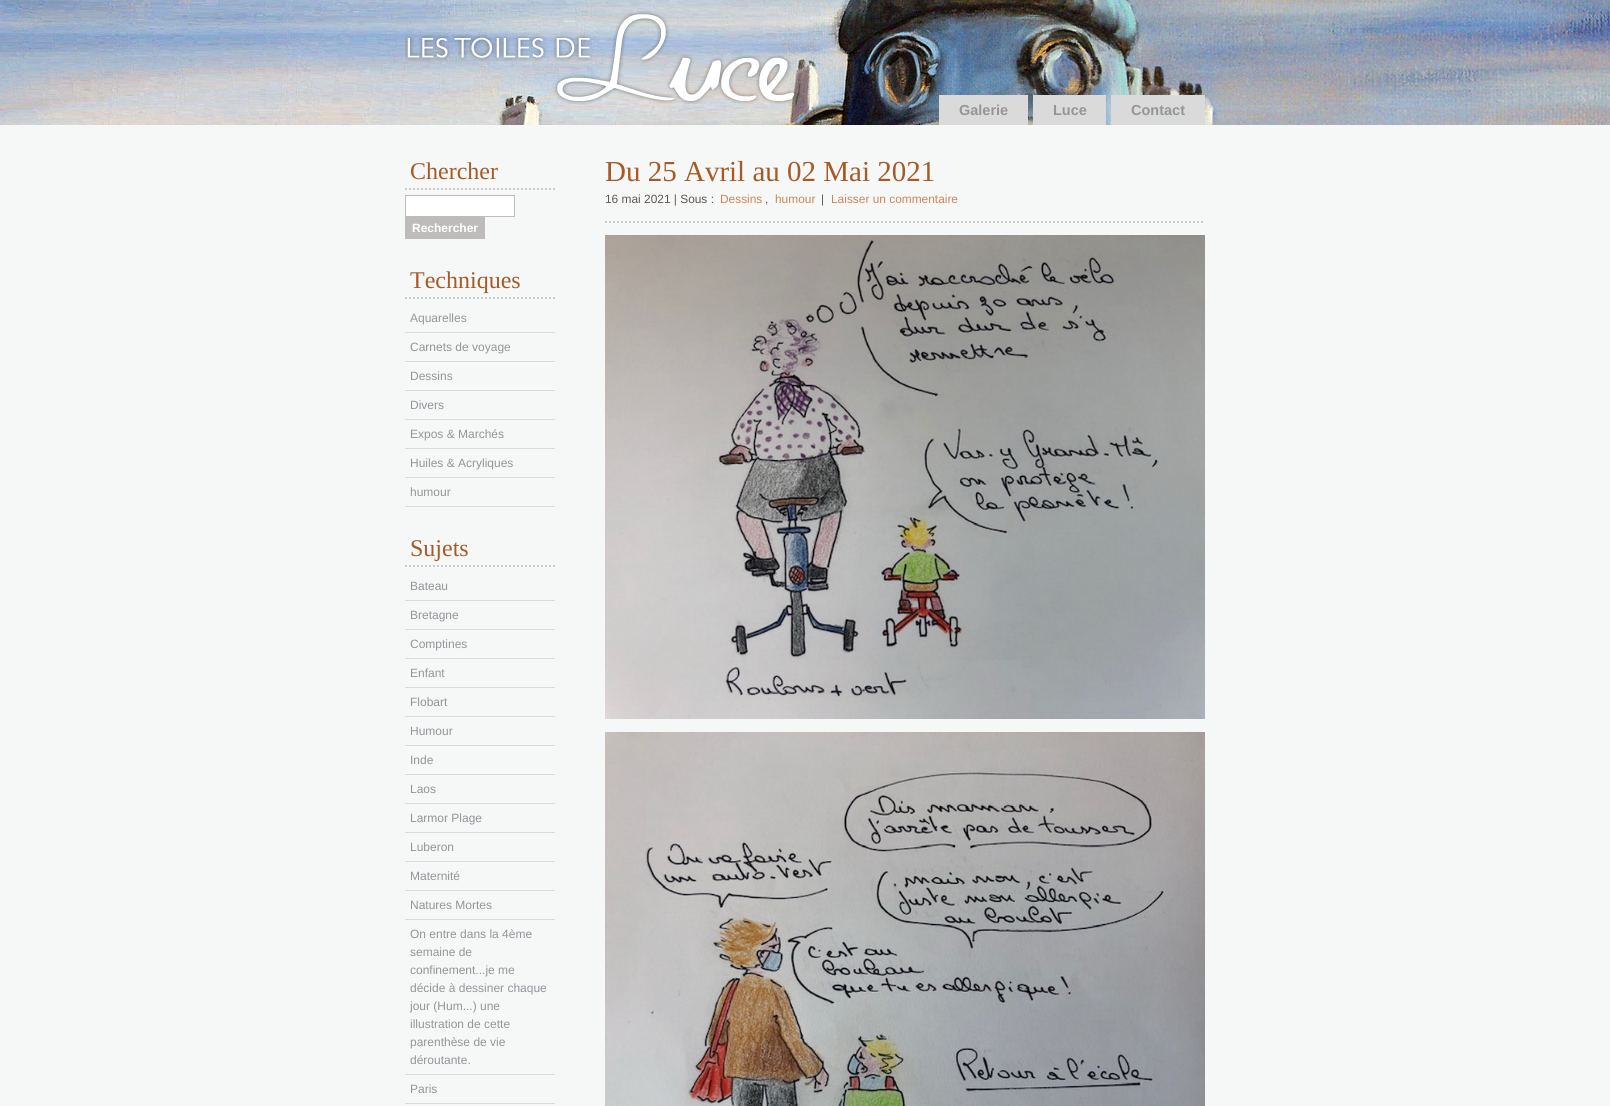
import math
import cairo


def paste(ctx, path, x, y, w, h):
	ctx.save()
	ctx.set_source_surface(cairo.ImageSurface.create_from_png(path), x, y)
	ctx.rectangle(x, y, w, h)
	ctx.fill()
	ctx.restore()

def draw(ctx):
	ctx.set_source_rgb(0.961, 0.965, 0.965)
	ctx.paint()
	paste(ctx, 'media/1.png', 0, 0, 1610, 125)
	paste(ctx, 'media/2.png', 405, 11, 391, 93)
	ctx.set_source_rgb(0.855, 0.855, 0.855)
	ctx.rectangle(939, 95, 89, 30)
	ctx.fill()
	ctx.select_font_face('Liberation Sans', cairo.FONT_SLANT_NORMAL, cairo.FONT_WEIGHT_BOLD)
	ctx.set_font_size(14.5)
	ctx.set_source_rgb(0.573, 0.588, 0.6)
	ctx.move_to(959, 115)
	ctx.show_text('Galerie')
	ctx.set_source_rgb(0.855, 0.855, 0.855)
	ctx.rectangle(1033, 95, 73, 30)
	ctx.fill()
	ctx.set_source_rgb(0.573, 0.588, 0.6)
	ctx.move_to(1053, 115)
	ctx.show_text('Luce')
	ctx.set_source_rgb(0.855, 0.855, 0.855)
	ctx.rectangle(1111, 95, 94, 30)
	ctx.fill()
	ctx.set_source_rgb(0.573, 0.588, 0.6)
	ctx.move_to(1131, 115)
	ctx.show_text('Contact')
	ctx.new_path()
	ctx.move_to(405, 189)
	ctx.line_to(555, 189)
	ctx.set_source_rgb(0.796, 0.792, 0.792)
	ctx.set_dash([2, 2])
	ctx.stroke()
	ctx.select_font_face('Liberation Serif')
	ctx.set_font_size(24)
	ctx.set_source_rgb(0.651, 0.353, 0.153)
	ctx.move_to(410, 179)
	ctx.show_text('Chercher')
	ctx.set_source_rgb(1, 1, 1)
	ctx.rectangle(405.5, 195.5, 109, 21)
	ctx.fill_preserve()
	ctx.set_source_rgb(0.745, 0.737, 0.729)
	ctx.set_line_width(1)
	ctx.set_dash([])
	ctx.stroke()
	ctx.rectangle(405, 217, 80, 22)
	ctx.fill()
	ctx.select_font_face('Liberation Sans', cairo.FONT_SLANT_NORMAL, cairo.FONT_WEIGHT_BOLD)
	ctx.set_font_size(12)
	ctx.set_source_rgb(1, 1, 1)
	ctx.move_to(412, 232)
	ctx.show_text('Rechercher')
	ctx.new_path()
	ctx.move_to(405, 298)
	ctx.line_to(555, 298)
	ctx.set_source_rgb(0.796, 0.792, 0.792)
	ctx.set_line_width(2)
	ctx.set_dash([2, 2])
	ctx.stroke()
	ctx.select_font_face('Liberation Serif')
	ctx.set_font_size(24)
	ctx.set_source_rgb(0.651, 0.353, 0.153)
	ctx.move_to(410, 288)
	ctx.show_text('Techniques')
	ctx.set_source_rgb(0.859, 0.859, 0.859)
	ctx.rectangle(405, 332, 150, 1)
	ctx.fill()
	ctx.select_font_face('Liberation Sans')
	ctx.set_font_size(12)
	ctx.set_source_rgb(0.573, 0.588, 0.6)
	ctx.move_to(410, 322)
	ctx.show_text('Aquarelles')
	ctx.set_source_rgb(0.859, 0.859, 0.859)
	ctx.rectangle(405, 361, 150, 1)
	ctx.fill()
	ctx.set_source_rgb(0.573, 0.588, 0.6)
	ctx.move_to(410, 351)
	ctx.show_text('Carnets de voyage')
	ctx.set_source_rgb(0.859, 0.859, 0.859)
	ctx.rectangle(405, 390, 150, 1)
	ctx.fill()
	ctx.set_source_rgb(0.573, 0.588, 0.6)
	ctx.move_to(410, 380)
	ctx.show_text('Dessins')
	ctx.set_source_rgb(0.859, 0.859, 0.859)
	ctx.rectangle(405, 419, 150, 1)
	ctx.fill()
	ctx.set_source_rgb(0.573, 0.588, 0.6)
	ctx.move_to(410, 409)
	ctx.show_text('Divers')
	ctx.set_source_rgb(0.859, 0.859, 0.859)
	ctx.rectangle(405, 448, 150, 1)
	ctx.fill()
	ctx.set_source_rgb(0.573, 0.588, 0.6)
	ctx.move_to(410, 438)
	ctx.show_text('Expos & Marchés')
	ctx.set_source_rgb(0.859, 0.859, 0.859)
	ctx.rectangle(405, 477, 150, 1)
	ctx.fill()
	ctx.set_source_rgb(0.573, 0.588, 0.6)
	ctx.move_to(410, 467)
	ctx.show_text('Huiles & Acryliques')
	ctx.set_source_rgb(0.859, 0.859, 0.859)
	ctx.rectangle(405, 506, 150, 1)
	ctx.fill()
	ctx.set_source_rgb(0.573, 0.588, 0.6)
	ctx.move_to(410, 496)
	ctx.show_text('humour')
	ctx.new_path()
	ctx.move_to(405, 566)
	ctx.line_to(555, 566)
	ctx.set_source_rgb(0.796, 0.792, 0.792)
	ctx.stroke()
	ctx.select_font_face('Liberation Serif')
	ctx.set_font_size(24)
	ctx.set_source_rgb(0.651, 0.353, 0.153)
	ctx.move_to(410, 556)
	ctx.show_text('Sujets')
	ctx.set_source_rgb(0.859, 0.859, 0.859)
	ctx.rectangle(405, 600, 150, 1)
	ctx.fill()
	ctx.select_font_face('Liberation Sans')
	ctx.set_font_size(12)
	ctx.set_source_rgb(0.573, 0.588, 0.6)
	ctx.move_to(410, 590)
	ctx.show_text('Bateau')
	ctx.set_source_rgb(0.859, 0.859, 0.859)
	ctx.rectangle(405, 629, 150, 1)
	ctx.fill()
	ctx.set_source_rgb(0.573, 0.588, 0.6)
	ctx.move_to(410, 619)
	ctx.show_text('Bretagne')
	ctx.set_source_rgb(0.859, 0.859, 0.859)
	ctx.rectangle(405, 658, 150, 1)
	ctx.fill()
	ctx.set_source_rgb(0.573, 0.588, 0.6)
	ctx.move_to(410, 648)
	ctx.show_text('Comptines')
	ctx.set_source_rgb(0.859, 0.859, 0.859)
	ctx.rectangle(405, 687, 150, 1)
	ctx.fill()
	ctx.set_source_rgb(0.573, 0.588, 0.6)
	ctx.move_to(410, 677)
	ctx.show_text('Enfant')
	ctx.set_source_rgb(0.859, 0.859, 0.859)
	ctx.rectangle(405, 716, 150, 1)
	ctx.fill()
	ctx.set_source_rgb(0.573, 0.588, 0.6)
	ctx.move_to(410, 706)
	ctx.show_text('Flobart')
	ctx.set_source_rgb(0.859, 0.859, 0.859)
	ctx.rectangle(405, 745, 150, 1)
	ctx.fill()
	ctx.set_source_rgb(0.573, 0.588, 0.6)
	ctx.move_to(410, 735)
	ctx.show_text('Humour')
	ctx.set_source_rgb(0.859, 0.859, 0.859)
	ctx.rectangle(405, 774, 150, 1)
	ctx.fill()
	ctx.set_source_rgb(0.573, 0.588, 0.6)
	ctx.move_to(410, 764)
	ctx.show_text('Inde')
	ctx.set_source_rgb(0.859, 0.859, 0.859)
	ctx.rectangle(405, 803, 150, 1)
	ctx.fill()
	ctx.set_source_rgb(0.573, 0.588, 0.6)
	ctx.move_to(410, 793)
	ctx.show_text('Laos')
	ctx.set_source_rgb(0.859, 0.859, 0.859)
	ctx.rectangle(405, 832, 150, 1)
	ctx.fill()
	ctx.set_source_rgb(0.573, 0.588, 0.6)
	ctx.move_to(410, 822)
	ctx.show_text('Larmor Plage')
	ctx.set_source_rgb(0.859, 0.859, 0.859)
	ctx.rectangle(405, 861, 150, 1)
	ctx.fill()
	ctx.set_source_rgb(0.573, 0.588, 0.6)
	ctx.move_to(410, 851)
	ctx.show_text('Luberon')
	ctx.set_source_rgb(0.859, 0.859, 0.859)
	ctx.rectangle(405, 890, 150, 1)
	ctx.fill()
	ctx.set_source_rgb(0.573, 0.588, 0.6)
	ctx.move_to(410, 880)
	ctx.show_text('Maternité')
	ctx.set_source_rgb(0.859, 0.859, 0.859)
	ctx.rectangle(405, 919, 150, 1)
	ctx.fill()
	ctx.set_source_rgb(0.573, 0.588, 0.6)
	ctx.move_to(410, 909)
	ctx.show_text('Natures Mortes')
	ctx.set_source_rgb(0.859, 0.859, 0.859)
	ctx.rectangle(405, 1074, 150, 1)
	ctx.fill()
	ctx.set_source_rgb(0.573, 0.588, 0.6)
	for x, y, s in [
		(410, 938, 'On entre dans la 4ème'),
		(410, 956, 'semaine de'),
		(410, 974, 'confinement...je me'),
		(410, 992, 'décide à dessiner chaque'),
		(410, 1010, 'jour (Hum...) une'),
		(410, 1028, 'illustration de cette'),
		(410, 1046, 'parenthèse de vie'),
		(410, 1064, 'déroutante.'),
	]:
		ctx.move_to(x, y)
		ctx.show_text(s)
	ctx.set_source_rgb(0.859, 0.859, 0.859)
	ctx.rectangle(405, 1103, 150, 1)
	ctx.fill()
	ctx.set_source_rgb(0.573, 0.588, 0.6)
	ctx.move_to(410, 1093)
	ctx.show_text('Paris')
	ctx.select_font_face('Liberation Serif')
	ctx.set_font_size(29)
	ctx.set_source_rgb(0.651, 0.353, 0.153)
	ctx.move_to(605, 181)
	ctx.show_text('Du 25 Avril au 02 Mai 2021')
	ctx.new_path()
	ctx.move_to(605, 222)
	ctx.line_to(1205, 222)
	ctx.set_source_rgb(0.796, 0.792, 0.792)
	ctx.stroke()
	ctx.select_font_face('Liberation Sans')
	ctx.set_font_size(11.9)
	ctx.set_source_rgb(0.369, 0.345, 0.325)
	ctx.move_to(605, 203)
	ctx.show_text('16 mai 2021 | Sous :')
	ctx.set_source_rgb(0.808, 0.525, 0.337)
	ctx.move_to(720, 203)
	ctx.show_text('Dessins')
	ctx.set_source_rgb(0.369, 0.345, 0.325)
	ctx.move_to(765, 203)
	ctx.show_text(',')
	ctx.set_source_rgb(0.808, 0.525, 0.337)
	ctx.move_to(775, 203)
	ctx.show_text('humour')
	ctx.set_source_rgb(0.369, 0.345, 0.325)
	ctx.move_to(821, 203)
	ctx.show_text('|')
	ctx.set_source_rgb(0.808, 0.525, 0.337)
	ctx.move_to(831, 203)
	ctx.show_text('Laisser un commentaire')
	paste(ctx, 'media/3.png', 605, 235, 600, 484)
	paste(ctx, 'media/4.png', 605, 732, 600, 374)


surface = cairo.ImageSurface(cairo.FORMAT_RGB24, 1610, 1106)
ctx = cairo.Context(surface)
options = cairo.FontOptions()
options.set_hint_metrics(cairo.HINT_METRICS_OFF)
options.set_hint_style(cairo.HINT_STYLE_NONE)
ctx.set_font_options(options)
ctx.set_miter_limit(4)
draw(ctx)
surface.write_to_png('image.png')
